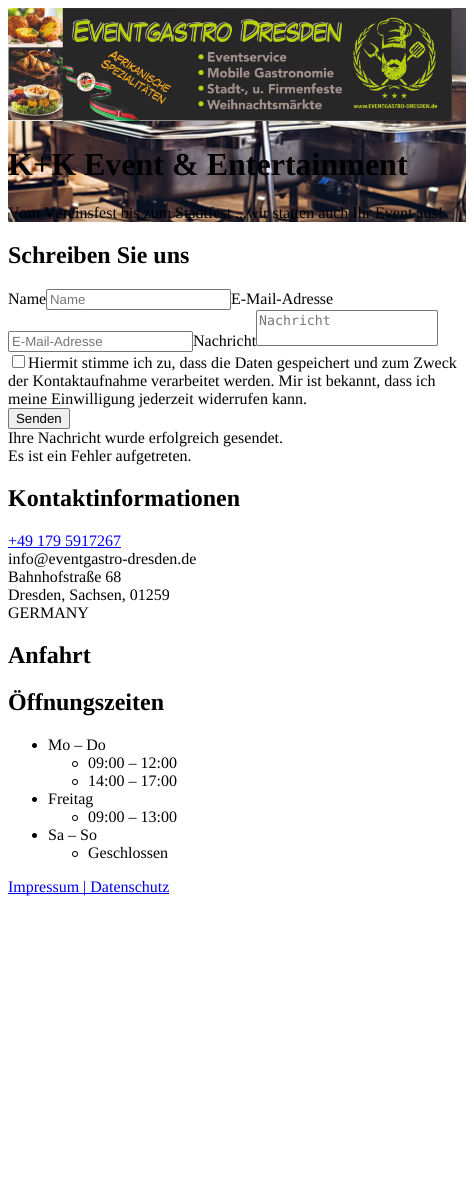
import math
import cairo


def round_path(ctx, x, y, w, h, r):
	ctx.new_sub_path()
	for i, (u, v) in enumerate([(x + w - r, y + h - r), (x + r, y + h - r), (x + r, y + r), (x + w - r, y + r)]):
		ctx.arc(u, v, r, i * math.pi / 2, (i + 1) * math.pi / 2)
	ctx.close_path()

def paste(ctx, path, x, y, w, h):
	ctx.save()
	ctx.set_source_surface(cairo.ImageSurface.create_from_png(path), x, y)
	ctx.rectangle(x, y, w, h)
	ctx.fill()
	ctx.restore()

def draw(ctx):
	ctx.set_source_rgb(1, 1, 1)
	ctx.paint()
	paste(ctx, 'media/1.png', 8, 8, 458, 214)
	paste(ctx, 'media/2.png', 8, 8, 444, 113)
	ctx.select_font_face('Liberation Serif', cairo.FONT_SLANT_NORMAL, cairo.FONT_WEIGHT_BOLD)
	ctx.set_font_size(32)
	ctx.set_source_rgb(0, 0, 0)
	ctx.move_to(8, 175)
	ctx.show_text('K+K Event & Entertainment')
	ctx.select_font_face('Liberation Serif')
	ctx.set_font_size(16)
	ctx.move_to(8, 218)
	ctx.show_text('Vom Vereinsfest bis zum Stadtfest ...wir statten auch Ihr Event aus!')
	ctx.select_font_face('Liberation Serif', cairo.FONT_SLANT_NORMAL, cairo.FONT_WEIGHT_BOLD)
	ctx.set_font_size(24)
	ctx.move_to(8, 263)
	ctx.show_text('Schreiben Sie uns')
	ctx.select_font_face('Liberation Serif')
	ctx.set_font_size(16)
	ctx.move_to(8, 304)
	ctx.show_text('Name')
	round_path(ctx, 46.5, 289.5, 184, 20, 1.5)
	ctx.set_source_rgb(0.463, 0.463, 0.463)
	ctx.set_line_width(1)
	ctx.stroke()
	ctx.select_font_face('Liberation Sans')
	ctx.set_font_size(13.25)
	ctx.set_source_rgb(0.459, 0.459, 0.459)
	ctx.move_to(50, 304)
	ctx.show_text('Name')
	ctx.select_font_face('Liberation Serif')
	ctx.set_font_size(16)
	ctx.set_source_rgb(0, 0, 0)
	ctx.move_to(231, 304)
	ctx.show_text('E-Mail-Adresse')
	round_path(ctx, 256.5, 310.5, 181, 35, 1.5)
	ctx.set_source_rgb(0.463, 0.463, 0.463)
	ctx.stroke()
	ctx.select_font_face('DejaVu Sans Mono')
	ctx.set_font_size(13.25)
	ctx.set_source_rgb(0.459, 0.459, 0.459)
	ctx.move_to(259, 325)
	ctx.show_text('Nachricht')
	round_path(ctx, 8.5, 331.5, 184, 20, 1.5)
	ctx.set_source_rgb(0.463, 0.463, 0.463)
	ctx.stroke()
	ctx.select_font_face('Liberation Sans')
	ctx.set_source_rgb(0.459, 0.459, 0.459)
	ctx.move_to(12, 346)
	ctx.show_text('E-Mail-Adresse')
	ctx.select_font_face('Liberation Serif')
	ctx.set_font_size(16)
	ctx.set_source_rgb(0, 0, 0)
	ctx.move_to(193, 346)
	ctx.show_text('Nachricht')
	round_path(ctx, 12.5, 355.5, 12, 12, 1.5)
	ctx.set_source_rgb(0.463, 0.463, 0.463)
	ctx.stroke()
	ctx.set_source_rgb(0, 0, 0)
	for x, y, s in [
		(28, 368, 'Hiermit stimme ich zu, dass die Daten gespeichert und zum Zweck'),
		(8, 386, 'der Kontaktaufnahme verarbeitet werden. Mir ist bekannt, dass ich'),
		(8, 404, 'meine Einwilligung jederzeit widerrufen kann.'),
	]:
		ctx.move_to(x, y)
		ctx.show_text(s)
	ctx.set_source_rgb(0.937, 0.937, 0.937)
	round_path(ctx, 8.5, 408.5, 61, 20, 1.5)
	ctx.fill_preserve()
	ctx.set_source_rgb(0.463, 0.463, 0.463)
	ctx.stroke()
	ctx.select_font_face('Liberation Sans')
	ctx.set_font_size(13.25)
	ctx.set_source_rgb(0, 0, 0)
	ctx.move_to(16, 423)
	ctx.show_text('Senden')
	ctx.select_font_face('Liberation Serif')
	ctx.set_font_size(16)
	ctx.move_to(8, 443)
	ctx.show_text('Ihre Nachricht wurde erfolgreich gesendet.')
	ctx.move_to(8, 461)
	ctx.show_text('Es ist ein Fehler aufgetreten.')
	ctx.select_font_face('Liberation Serif', cairo.FONT_SLANT_NORMAL, cairo.FONT_WEIGHT_BOLD)
	ctx.set_font_size(24)
	ctx.move_to(8, 506)
	ctx.show_text('Kontaktinformationen')
	ctx.select_font_face('Liberation Serif')
	ctx.set_font_size(16)
	ctx.set_source_rgb(0, 0, 0.933)
	ctx.move_to(8, 546)
	ctx.show_text('+49 179 5917267')
	ctx.rectangle(8, 547, 113, 1)
	ctx.fill()
	ctx.set_source_rgb(0, 0, 0)
	for x, y, s in [
		(8, 564, 'info@eventgastro-dresden.de'),
		(8, 582, 'Bahnhofstraße 68'),
		(8, 600, 'Dresden, Sachsen, 01259'),
		(8, 618, 'GERMANY'),
	]:
		ctx.move_to(x, y)
		ctx.show_text(s)
	ctx.select_font_face('Liberation Serif', cairo.FONT_SLANT_NORMAL, cairo.FONT_WEIGHT_BOLD)
	ctx.set_font_size(24)
	ctx.move_to(8, 663)
	ctx.show_text('Anfahrt')
	ctx.move_to(8, 710)
	ctx.show_text('Öffnungszeiten')
	ctx.new_path()
	ctx.arc(34.5, 745.5, 2.5, 0, 2 * math.pi)
	ctx.fill()
	ctx.select_font_face('Liberation Serif')
	ctx.set_font_size(16)
	ctx.move_to(48, 750)
	ctx.show_text('Mo – Do')
	ctx.new_path()
	ctx.arc(75, 764, 2.5, 0, 2 * math.pi)
	ctx.stroke()
	ctx.move_to(88, 768)
	ctx.show_text('09:00 – 12:00')
	ctx.new_path()
	ctx.arc(75, 782, 2.5, 0, 2 * math.pi)
	ctx.stroke()
	ctx.move_to(88, 786)
	ctx.show_text('14:00 – 17:00')
	ctx.new_path()
	ctx.arc(34.5, 799.5, 2.5, 0, 2 * math.pi)
	ctx.fill()
	ctx.move_to(48, 804)
	ctx.show_text('Freitag')
	ctx.new_path()
	ctx.arc(75, 818, 2.5, 0, 2 * math.pi)
	ctx.stroke()
	ctx.move_to(88, 822)
	ctx.show_text('09:00 – 13:00')
	ctx.new_path()
	ctx.arc(34.5, 835.5, 2.5, 0, 2 * math.pi)
	ctx.fill()
	ctx.move_to(48, 840)
	ctx.show_text('Sa – So')
	ctx.new_path()
	ctx.arc(75, 854, 2.5, 0, 2 * math.pi)
	ctx.stroke()
	ctx.move_to(88, 858)
	ctx.show_text('Geschlossen')
	ctx.set_source_rgb(0, 0, 0.933)
	ctx.rectangle(8, 893, 161, 1)
	ctx.fill()
	ctx.move_to(8, 892)
	ctx.show_text('Impressum | Datenschutz')


surface = cairo.ImageSurface(cairo.FORMAT_RGB24, 474, 1177)
ctx = cairo.Context(surface)
options = cairo.FontOptions()
options.set_hint_metrics(cairo.HINT_METRICS_OFF)
options.set_hint_style(cairo.HINT_STYLE_NONE)
ctx.set_font_options(options)
ctx.set_miter_limit(4)
draw(ctx)
surface.write_to_png('image.png')
